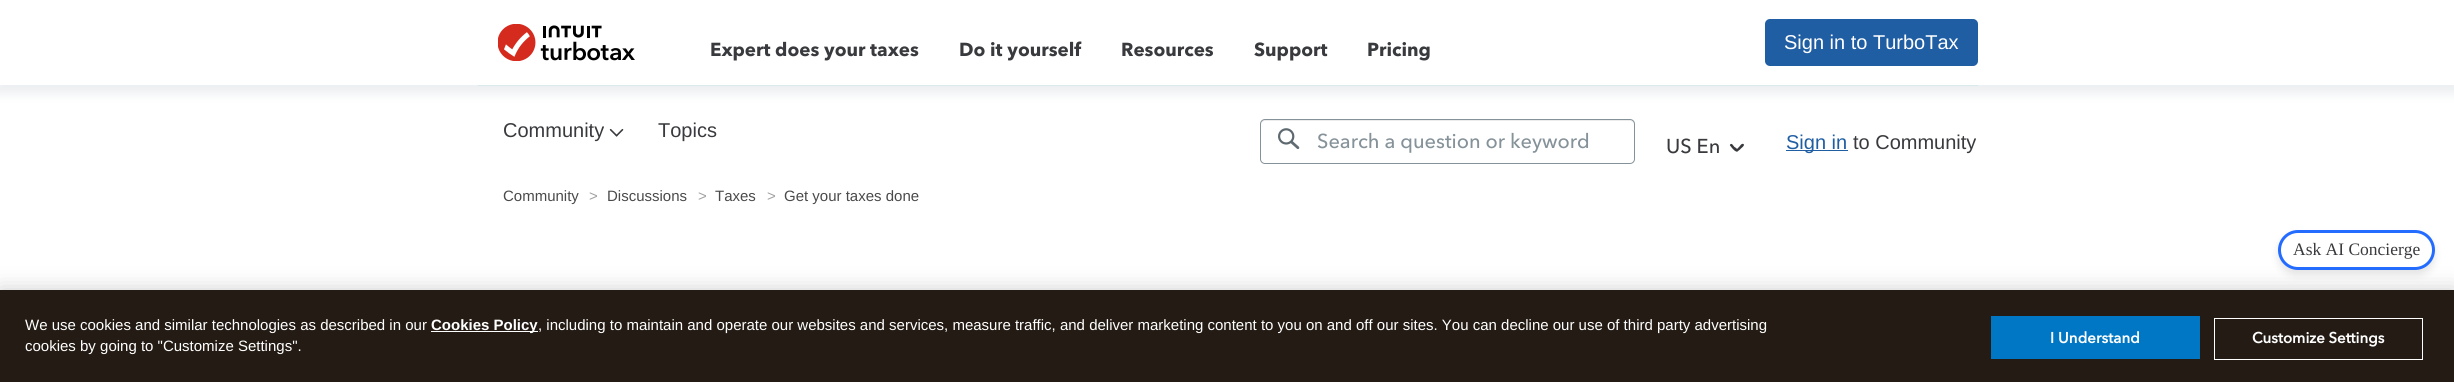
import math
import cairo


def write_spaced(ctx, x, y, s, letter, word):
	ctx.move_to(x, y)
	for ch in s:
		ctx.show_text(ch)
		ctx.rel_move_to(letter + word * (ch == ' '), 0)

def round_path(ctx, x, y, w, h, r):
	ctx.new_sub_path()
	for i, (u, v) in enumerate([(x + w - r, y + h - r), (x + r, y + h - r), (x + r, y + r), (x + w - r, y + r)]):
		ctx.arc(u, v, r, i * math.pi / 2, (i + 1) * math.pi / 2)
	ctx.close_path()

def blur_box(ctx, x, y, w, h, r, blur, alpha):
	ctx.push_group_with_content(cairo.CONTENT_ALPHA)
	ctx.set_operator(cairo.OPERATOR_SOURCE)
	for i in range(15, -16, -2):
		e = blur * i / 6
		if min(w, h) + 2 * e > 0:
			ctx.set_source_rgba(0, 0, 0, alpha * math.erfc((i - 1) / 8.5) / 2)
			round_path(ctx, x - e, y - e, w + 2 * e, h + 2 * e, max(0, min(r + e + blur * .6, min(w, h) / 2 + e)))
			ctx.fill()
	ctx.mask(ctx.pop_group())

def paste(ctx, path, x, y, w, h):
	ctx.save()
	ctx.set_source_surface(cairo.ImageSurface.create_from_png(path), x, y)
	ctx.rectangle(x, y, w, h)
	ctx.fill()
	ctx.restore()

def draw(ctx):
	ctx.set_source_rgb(1, 1, 1)
	ctx.paint()
	ctx.save()
	ctx.rectangle(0, 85, 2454, 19)
	ctx.clip()
	ctx.set_source_rgb(0.922, 0.937, 0.945)
	blur_box(ctx, -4, 1, 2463, 93, 0, 5, 1)
	ctx.restore()
	paste(ctx, 'media/1.png', 498, 24, 137, 37)
	ctx.select_font_face('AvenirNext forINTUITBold', cairo.FONT_SLANT_NORMAL, cairo.FONT_WEIGHT_BOLD)
	ctx.set_font_size(18.75)
	ctx.set_source_rgb(0.224, 0.227, 0.239)
	for x, y, s in [
		(710, 56, 'Expert does your taxes'),
		(959, 56, 'Do it yourself'),
		(1121, 56, 'Resources'),
		(1254, 56, 'Support'),
		(1367, 56, 'Pricing'),
	]:
		ctx.move_to(x, y)
		ctx.show_text(s)
	ctx.set_source_rgb(0.125, 0.369, 0.639)
	round_path(ctx, 1765, 19, 213, 47, 5)
	ctx.fill()
	ctx.select_font_face('Liberation Sans')
	ctx.set_font_size(20)
	ctx.set_source_rgb(1, 1, 1)
	ctx.move_to(1784, 49)
	ctx.show_text('Sign in to TurboTax')
	ctx.set_source_rgb(0.851, 0.914, 0.925)
	ctx.rectangle(478, 85, 1500, 1)
	ctx.fill()
	ctx.set_source_rgb(0.224, 0.227, 0.239)
	ctx.move_to(503, 137)
	ctx.show_text('Community')
	paste(ctx, 'media/2.png', 609, 128, 15, 9)
	ctx.move_to(658, 137)
	ctx.show_text('Topics')
	ctx.set_source_rgb(0.925, 0.925, 0.925)
	ctx.new_path()
	ctx.move_to(1265, 121)
	ctx.line_to(1630, 121)
	ctx.curve_to(1632, 121, 1634, 123, 1634, 125)
	ctx.curve_to(1634, 122, 1633, 120, 1630, 120)
	ctx.line_to(1265, 120)
	ctx.curve_to(1262, 120, 1261, 122, 1261, 125)
	ctx.curve_to(1261, 123, 1263, 121, 1265, 121)
	ctx.close_path()
	ctx.fill()
	round_path(ctx, 1260.5, 119.5, 374, 44, 4.5)
	ctx.set_source_rgb(0.522, 0.573, 0.6)
	ctx.set_line_width(1)
	ctx.stroke()
	paste(ctx, 'media/3.png', 1278, 128, 22, 21)
	ctx.select_font_face('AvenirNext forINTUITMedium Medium')
	ctx.move_to(1317, 148)
	ctx.show_text('Search a question or keyword')
	ctx.select_font_face('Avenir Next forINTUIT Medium')
	ctx.set_source_rgb(0.224, 0.227, 0.239)
	ctx.move_to(1666, 153)
	ctx.show_text('US En')
	ctx.new_path()
	ctx.move_to(1732, 144)
	ctx.line_to(1734.5, 147)
	ctx.curve_to(1735.5, 147.5, 1738.5, 149.5, 1737.5, 151)
	ctx.curve_to(1736, 153, 1732.5, 148.5, 1732, 148)
	ctx.line_to(1730, 145.5)
	ctx.curve_to(1729.5, 144.5, 1731, 143.5, 1732, 144)
	ctx.close_path()
	ctx.fill()
	ctx.new_path()
	ctx.move_to(1736.5, 149.5)
	ctx.line_to(1739, 147)
	ctx.curve_to(1740, 146, 1741.5, 143, 1743.5, 144)
	ctx.curve_to(1745.5, 145.5, 1740.5, 148.5, 1740, 149.5)
	ctx.line_to(1737.5, 151.5)
	ctx.curve_to(1736.5, 152, 1735.5, 150.5, 1736.5, 149.5)
	ctx.close_path()
	ctx.fill()
	ctx.set_source_rgb(0.125, 0.369, 0.639)
	ctx.rectangle(1786, 150, 62, 1)
	ctx.fill()
	ctx.select_font_face('Liberation Sans')
	ctx.move_to(1786, 149)
	ctx.show_text('Sign in')
	ctx.set_source_rgb(0.224, 0.227, 0.239)
	ctx.move_to(1853, 149)
	ctx.show_text('to Community')
	ctx.set_font_size(15)
	ctx.set_source_rgb(0.29, 0.29, 0.29)
	ctx.move_to(503, 201)
	ctx.show_text('Community')
	ctx.set_source_rgb(0.631, 0.631, 0.631)
	ctx.move_to(589, 201)
	ctx.show_text('>')
	ctx.set_source_rgb(0.29, 0.29, 0.29)
	ctx.move_to(607, 201)
	ctx.show_text('Discussions')
	ctx.set_source_rgb(0.631, 0.631, 0.631)
	ctx.move_to(698, 201)
	ctx.show_text('>')
	ctx.set_source_rgb(0.29, 0.29, 0.29)
	ctx.move_to(715, 201)
	ctx.show_text('Taxes')
	ctx.set_source_rgb(0.631, 0.631, 0.631)
	ctx.move_to(767, 201)
	ctx.show_text('>')
	ctx.set_source_rgb(0.29, 0.29, 0.29)
	ctx.move_to(784, 201)
	ctx.show_text('Get your taxes done')
	ctx.set_source_rgb(0, 0, 0)
	blur_box(ctx, 2278, 235, 157, 40, 20, 4, 0.1)
	ctx.set_source_rgb(1, 1, 1)
	round_path(ctx, 2279.5, 231.5, 154, 37, 18.5)
	ctx.fill_preserve()
	ctx.set_source_rgb(0.137, 0.424, 1)
	ctx.set_line_width(3)
	ctx.stroke()
	ctx.select_font_face('Liberation Serif')
	ctx.set_font_size(17.5)
	ctx.set_source_rgb(0.224, 0.227, 0.239)
	ctx.move_to(2293, 255)
	ctx.show_text('Ask AI Concierge')
	ctx.set_source_rgb(0, 0, 0)
	blur_box(ctx, 0, 290, 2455, 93, 0, 11, 0.2)
	ctx.set_source_rgb(0.141, 0.11, 0.082)
	ctx.rectangle(0, 290, 2454, 92)
	ctx.fill()
	ctx.select_font_face('Liberation Sans')
	ctx.set_font_size(15)
	ctx.set_source_rgb(1, 1, 1)
	ctx.move_to(25, 330)
	ctx.show_text('We use cookies and similar technologies as described in our')
	ctx.rectangle(431, 331, 107, 1)
	ctx.fill()
	ctx.select_font_face('Liberation Sans', cairo.FONT_SLANT_NORMAL, cairo.FONT_WEIGHT_BOLD)
	ctx.move_to(431, 330)
	ctx.show_text('Cookies Policy')
	ctx.select_font_face('Liberation Sans')
	ctx.move_to(538, 330)
	ctx.show_text(', including to maintain and operate our websites and services, measure traffic, and deliver marketing content to you on and off our sites. You can decline our use of third party advertising')
	ctx.move_to(25, 351)
	ctx.show_text('cookies by going to "Customize Settings".')
	ctx.rectangle(2214.5, 318.5, 208, 41)
	ctx.set_line_width(1)
	ctx.stroke()
	ctx.select_font_face('Avenir Next forINTUIT', cairo.FONT_SLANT_NORMAL, cairo.FONT_WEIGHT_BOLD)
	ctx.move_to(2252, 343)
	ctx.show_text('Customize Settings')
	ctx.set_source_rgb(0, 0.467, 0.773)
	ctx.rectangle(1991, 316, 209, 43)
	ctx.fill()
	ctx.set_source_rgb(1, 1, 1)
	write_spaced(ctx, 2050, 343, 'I Understand', 0.1, 0)


surface = cairo.ImageSurface(cairo.FORMAT_RGB24, 2454, 382)
ctx = cairo.Context(surface)
options = cairo.FontOptions()
options.set_hint_metrics(cairo.HINT_METRICS_OFF)
options.set_hint_style(cairo.HINT_STYLE_NONE)
ctx.set_font_options(options)
ctx.set_miter_limit(4)
draw(ctx)
surface.write_to_png('image.png')
